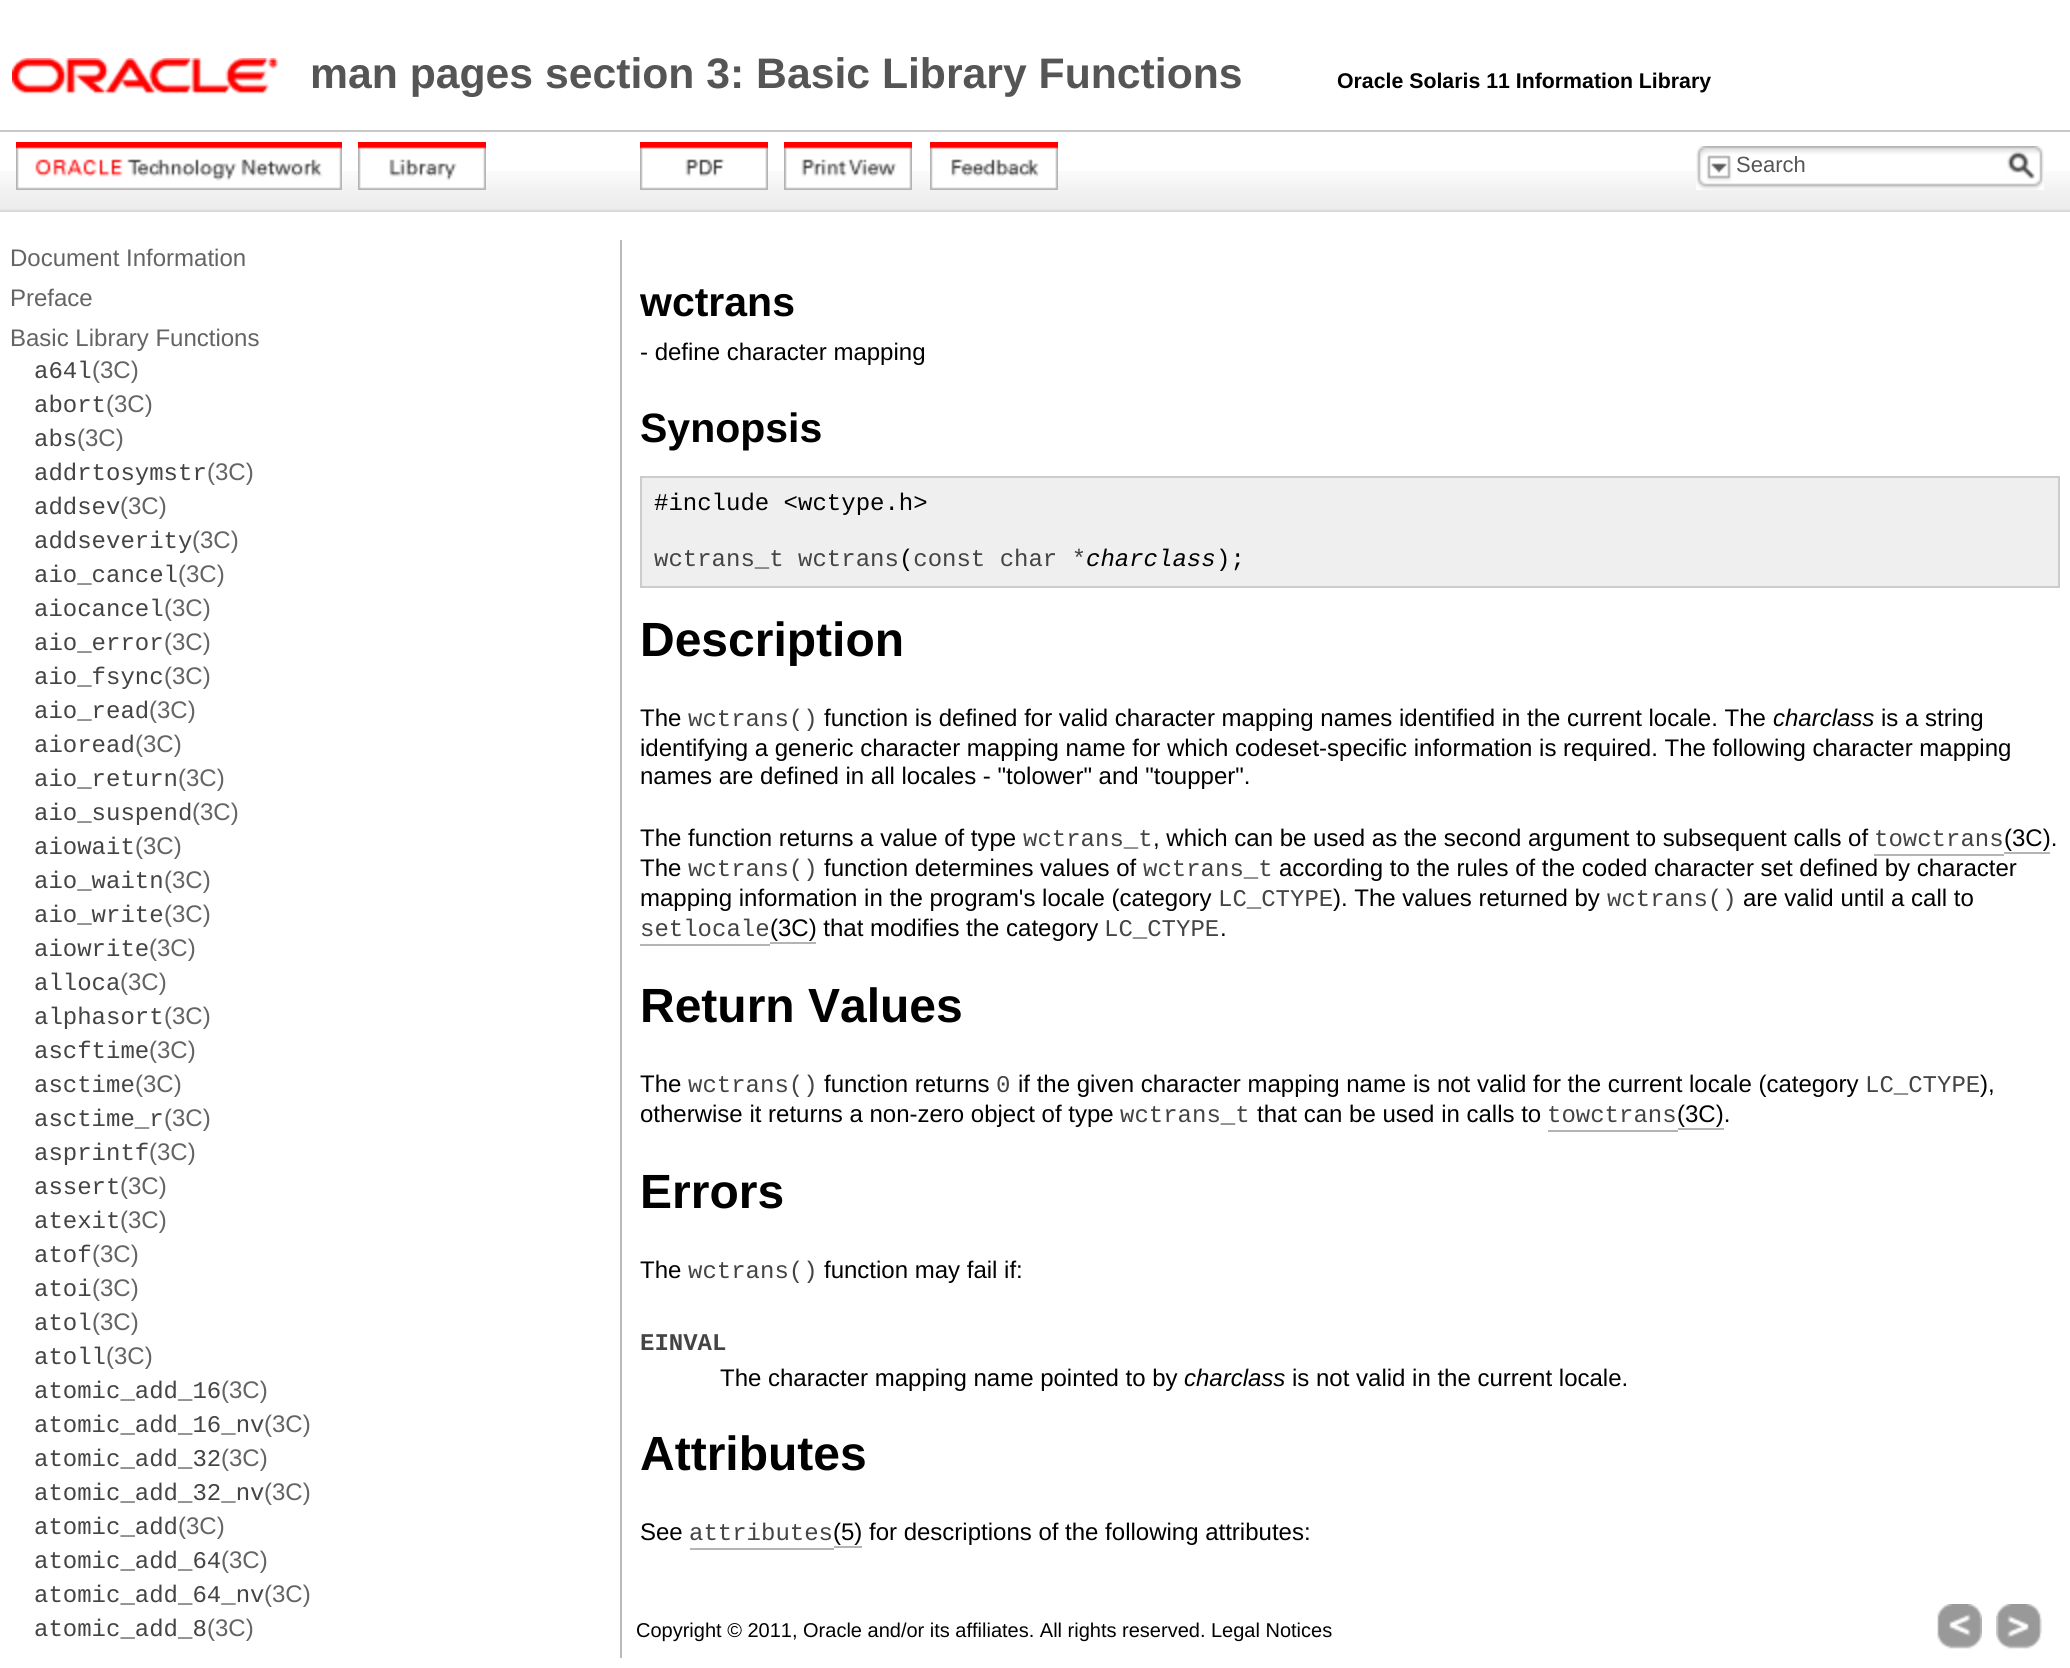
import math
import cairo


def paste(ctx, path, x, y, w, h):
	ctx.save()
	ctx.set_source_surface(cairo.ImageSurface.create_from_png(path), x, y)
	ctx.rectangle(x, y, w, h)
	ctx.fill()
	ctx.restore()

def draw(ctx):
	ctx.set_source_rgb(1, 1, 1)
	ctx.paint()
	paste(ctx, 'media/1.png', 12, 58, 266, 36)
	ctx.select_font_face('Liberation Sans', cairo.FONT_SLANT_NORMAL, cairo.FONT_WEIGHT_BOLD)
	ctx.set_font_size(42.7)
	ctx.set_source_rgb(0.333, 0.333, 0.333)
	ctx.move_to(310, 88)
	ctx.show_text('man pages section 3: Basic Library Functions')
	ctx.set_font_size(21.3)
	ctx.set_source_rgb(0, 0, 0)
	ctx.move_to(1337, 88)
	ctx.show_text('Oracle Solaris 11 Information Library')
	paste(ctx, 'media/2.png', 0, 171, 2070, 41)
	ctx.set_source_rgb(0.784, 0.784, 0.784)
	ctx.rectangle(0, 130, 2070, 2)
	ctx.fill()
	paste(ctx, 'media/3.png', 16, 142, 326, 48)
	paste(ctx, 'media/4.png', 358, 142, 128, 48)
	paste(ctx, 'media/5.png', 640, 142, 128, 48)
	paste(ctx, 'media/6.png', 784, 142, 128, 48)
	paste(ctx, 'media/7.png', 930, 142, 128, 48)
	paste(ctx, 'media/8.png', 1696, 146, 40, 44)
	paste(ctx, 'media/9.png', 1736, 146, 266, 42)
	ctx.select_font_face('Liberation Sans')
	ctx.set_font_size(22)
	ctx.set_source_rgb(0.333, 0.333, 0.333)
	ctx.move_to(1736, 172)
	ctx.show_text('Search')
	paste(ctx, 'media/10.png', 2002, 146, 42, 44)
	ctx.set_source_rgb(0.725, 0.725, 0.725)
	ctx.rectangle(620, 240, 2, 1418)
	ctx.fill()
	ctx.set_font_size(24)
	ctx.set_source_rgb(0.392, 0.392, 0.392)
	for x, y, s in [
		(10, 266, 'Document Information'),
		(10, 306, 'Preface'),
		(10, 346, 'Basic Library Functions'),
	]:
		ctx.move_to(x, y)
		ctx.show_text(s)
	ctx.select_font_face('Liberation Mono')
	ctx.set_source_rgb(0.267, 0.267, 0.267)
	ctx.move_to(34, 378)
	ctx.show_text('a64l')
	ctx.select_font_face('Liberation Sans')
	ctx.set_source_rgb(0.392, 0.392, 0.392)
	ctx.move_to(92, 378)
	ctx.show_text('(3C)')
	ctx.select_font_face('Liberation Mono')
	ctx.set_source_rgb(0.267, 0.267, 0.267)
	ctx.move_to(34, 412)
	ctx.show_text('abort')
	ctx.select_font_face('Liberation Sans')
	ctx.set_source_rgb(0.392, 0.392, 0.392)
	ctx.move_to(106, 412)
	ctx.show_text('(3C)')
	ctx.select_font_face('Liberation Mono')
	ctx.set_source_rgb(0.267, 0.267, 0.267)
	ctx.move_to(34, 446)
	ctx.show_text('abs')
	ctx.select_font_face('Liberation Sans')
	ctx.set_source_rgb(0.392, 0.392, 0.392)
	ctx.move_to(77, 446)
	ctx.show_text('(3C)')
	ctx.select_font_face('Liberation Mono')
	ctx.set_source_rgb(0.267, 0.267, 0.267)
	ctx.move_to(34, 480)
	ctx.show_text('addrtosymstr')
	ctx.select_font_face('Liberation Sans')
	ctx.set_source_rgb(0.392, 0.392, 0.392)
	ctx.move_to(207, 480)
	ctx.show_text('(3C)')
	ctx.select_font_face('Liberation Mono')
	ctx.set_source_rgb(0.267, 0.267, 0.267)
	ctx.move_to(34, 514)
	ctx.show_text('addsev')
	ctx.select_font_face('Liberation Sans')
	ctx.set_source_rgb(0.392, 0.392, 0.392)
	ctx.move_to(120, 514)
	ctx.show_text('(3C)')
	ctx.select_font_face('Liberation Mono')
	ctx.set_source_rgb(0.267, 0.267, 0.267)
	ctx.move_to(34, 548)
	ctx.show_text('addseverity')
	ctx.select_font_face('Liberation Sans')
	ctx.set_source_rgb(0.392, 0.392, 0.392)
	ctx.move_to(192, 548)
	ctx.show_text('(3C)')
	ctx.select_font_face('Liberation Mono')
	ctx.set_source_rgb(0.267, 0.267, 0.267)
	ctx.move_to(34, 582)
	ctx.show_text('aio_cancel')
	ctx.select_font_face('Liberation Sans')
	ctx.set_source_rgb(0.392, 0.392, 0.392)
	ctx.move_to(178, 582)
	ctx.show_text('(3C)')
	ctx.select_font_face('Liberation Mono')
	ctx.set_source_rgb(0.267, 0.267, 0.267)
	ctx.move_to(34, 616)
	ctx.show_text('aiocancel')
	ctx.select_font_face('Liberation Sans')
	ctx.set_source_rgb(0.392, 0.392, 0.392)
	ctx.move_to(164, 616)
	ctx.show_text('(3C)')
	ctx.select_font_face('Liberation Mono')
	ctx.set_source_rgb(0.267, 0.267, 0.267)
	ctx.move_to(34, 650)
	ctx.show_text('aio_error')
	ctx.select_font_face('Liberation Sans')
	ctx.set_source_rgb(0.392, 0.392, 0.392)
	ctx.move_to(164, 650)
	ctx.show_text('(3C)')
	ctx.select_font_face('Liberation Mono')
	ctx.set_source_rgb(0.267, 0.267, 0.267)
	ctx.move_to(34, 684)
	ctx.show_text('aio_fsync')
	ctx.select_font_face('Liberation Sans')
	ctx.set_source_rgb(0.392, 0.392, 0.392)
	ctx.move_to(164, 684)
	ctx.show_text('(3C)')
	ctx.select_font_face('Liberation Mono')
	ctx.set_source_rgb(0.267, 0.267, 0.267)
	ctx.move_to(34, 718)
	ctx.show_text('aio_read')
	ctx.select_font_face('Liberation Sans')
	ctx.set_source_rgb(0.392, 0.392, 0.392)
	ctx.move_to(149, 718)
	ctx.show_text('(3C)')
	ctx.select_font_face('Liberation Mono')
	ctx.set_source_rgb(0.267, 0.267, 0.267)
	ctx.move_to(34, 752)
	ctx.show_text('aioread')
	ctx.select_font_face('Liberation Sans')
	ctx.set_source_rgb(0.392, 0.392, 0.392)
	ctx.move_to(135, 752)
	ctx.show_text('(3C)')
	ctx.select_font_face('Liberation Mono')
	ctx.set_source_rgb(0.267, 0.267, 0.267)
	ctx.move_to(34, 786)
	ctx.show_text('aio_return')
	ctx.select_font_face('Liberation Sans')
	ctx.set_source_rgb(0.392, 0.392, 0.392)
	ctx.move_to(178, 786)
	ctx.show_text('(3C)')
	ctx.select_font_face('Liberation Mono')
	ctx.set_source_rgb(0.267, 0.267, 0.267)
	ctx.move_to(34, 820)
	ctx.show_text('aio_suspend')
	ctx.select_font_face('Liberation Sans')
	ctx.set_source_rgb(0.392, 0.392, 0.392)
	ctx.move_to(192, 820)
	ctx.show_text('(3C)')
	ctx.select_font_face('Liberation Mono')
	ctx.set_source_rgb(0.267, 0.267, 0.267)
	ctx.move_to(34, 854)
	ctx.show_text('aiowait')
	ctx.select_font_face('Liberation Sans')
	ctx.set_source_rgb(0.392, 0.392, 0.392)
	ctx.move_to(135, 854)
	ctx.show_text('(3C)')
	ctx.select_font_face('Liberation Mono')
	ctx.set_source_rgb(0.267, 0.267, 0.267)
	ctx.move_to(34, 888)
	ctx.show_text('aio_waitn')
	ctx.select_font_face('Liberation Sans')
	ctx.set_source_rgb(0.392, 0.392, 0.392)
	ctx.move_to(164, 888)
	ctx.show_text('(3C)')
	ctx.select_font_face('Liberation Mono')
	ctx.set_source_rgb(0.267, 0.267, 0.267)
	ctx.move_to(34, 922)
	ctx.show_text('aio_write')
	ctx.select_font_face('Liberation Sans')
	ctx.set_source_rgb(0.392, 0.392, 0.392)
	ctx.move_to(164, 922)
	ctx.show_text('(3C)')
	ctx.select_font_face('Liberation Mono')
	ctx.set_source_rgb(0.267, 0.267, 0.267)
	ctx.move_to(34, 956)
	ctx.show_text('aiowrite')
	ctx.select_font_face('Liberation Sans')
	ctx.set_source_rgb(0.392, 0.392, 0.392)
	ctx.move_to(149, 956)
	ctx.show_text('(3C)')
	ctx.select_font_face('Liberation Mono')
	ctx.set_source_rgb(0.267, 0.267, 0.267)
	ctx.move_to(34, 990)
	ctx.show_text('alloca')
	ctx.select_font_face('Liberation Sans')
	ctx.set_source_rgb(0.392, 0.392, 0.392)
	ctx.move_to(120, 990)
	ctx.show_text('(3C)')
	ctx.select_font_face('Liberation Mono')
	ctx.set_source_rgb(0.267, 0.267, 0.267)
	ctx.move_to(34, 1024)
	ctx.show_text('alphasort')
	ctx.select_font_face('Liberation Sans')
	ctx.set_source_rgb(0.392, 0.392, 0.392)
	ctx.move_to(164, 1024)
	ctx.show_text('(3C)')
	ctx.select_font_face('Liberation Mono')
	ctx.set_source_rgb(0.267, 0.267, 0.267)
	ctx.move_to(34, 1058)
	ctx.show_text('ascftime')
	ctx.select_font_face('Liberation Sans')
	ctx.set_source_rgb(0.392, 0.392, 0.392)
	ctx.move_to(149, 1058)
	ctx.show_text('(3C)')
	ctx.select_font_face('Liberation Mono')
	ctx.set_source_rgb(0.267, 0.267, 0.267)
	ctx.move_to(34, 1092)
	ctx.show_text('asctime')
	ctx.select_font_face('Liberation Sans')
	ctx.set_source_rgb(0.392, 0.392, 0.392)
	ctx.move_to(135, 1092)
	ctx.show_text('(3C)')
	ctx.select_font_face('Liberation Mono')
	ctx.set_source_rgb(0.267, 0.267, 0.267)
	ctx.move_to(34, 1126)
	ctx.show_text('asctime_r')
	ctx.select_font_face('Liberation Sans')
	ctx.set_source_rgb(0.392, 0.392, 0.392)
	ctx.move_to(164, 1126)
	ctx.show_text('(3C)')
	ctx.select_font_face('Liberation Mono')
	ctx.set_source_rgb(0.267, 0.267, 0.267)
	ctx.move_to(34, 1160)
	ctx.show_text('asprintf')
	ctx.select_font_face('Liberation Sans')
	ctx.set_source_rgb(0.392, 0.392, 0.392)
	ctx.move_to(149, 1160)
	ctx.show_text('(3C)')
	ctx.select_font_face('Liberation Mono')
	ctx.set_source_rgb(0.267, 0.267, 0.267)
	ctx.move_to(34, 1194)
	ctx.show_text('assert')
	ctx.select_font_face('Liberation Sans')
	ctx.set_source_rgb(0.392, 0.392, 0.392)
	ctx.move_to(120, 1194)
	ctx.show_text('(3C)')
	ctx.select_font_face('Liberation Mono')
	ctx.set_source_rgb(0.267, 0.267, 0.267)
	ctx.move_to(34, 1228)
	ctx.show_text('atexit')
	ctx.select_font_face('Liberation Sans')
	ctx.set_source_rgb(0.392, 0.392, 0.392)
	ctx.move_to(120, 1228)
	ctx.show_text('(3C)')
	ctx.select_font_face('Liberation Mono')
	ctx.set_source_rgb(0.267, 0.267, 0.267)
	ctx.move_to(34, 1262)
	ctx.show_text('atof')
	ctx.select_font_face('Liberation Sans')
	ctx.set_source_rgb(0.392, 0.392, 0.392)
	ctx.move_to(92, 1262)
	ctx.show_text('(3C)')
	ctx.select_font_face('Liberation Mono')
	ctx.set_source_rgb(0.267, 0.267, 0.267)
	ctx.move_to(34, 1296)
	ctx.show_text('atoi')
	ctx.select_font_face('Liberation Sans')
	ctx.set_source_rgb(0.392, 0.392, 0.392)
	ctx.move_to(92, 1296)
	ctx.show_text('(3C)')
	ctx.select_font_face('Liberation Mono')
	ctx.set_source_rgb(0.267, 0.267, 0.267)
	ctx.move_to(34, 1330)
	ctx.show_text('atol')
	ctx.select_font_face('Liberation Sans')
	ctx.set_source_rgb(0.392, 0.392, 0.392)
	ctx.move_to(92, 1330)
	ctx.show_text('(3C)')
	ctx.select_font_face('Liberation Mono')
	ctx.set_source_rgb(0.267, 0.267, 0.267)
	ctx.move_to(34, 1364)
	ctx.show_text('atoll')
	ctx.select_font_face('Liberation Sans')
	ctx.set_source_rgb(0.392, 0.392, 0.392)
	ctx.move_to(106, 1364)
	ctx.show_text('(3C)')
	ctx.select_font_face('Liberation Mono')
	ctx.set_source_rgb(0.267, 0.267, 0.267)
	ctx.move_to(34, 1398)
	ctx.show_text('atomic_add_16')
	ctx.select_font_face('Liberation Sans')
	ctx.set_source_rgb(0.392, 0.392, 0.392)
	ctx.move_to(221, 1398)
	ctx.show_text('(3C)')
	ctx.select_font_face('Liberation Mono')
	ctx.set_source_rgb(0.267, 0.267, 0.267)
	ctx.move_to(34, 1432)
	ctx.show_text('atomic_add_16_nv')
	ctx.select_font_face('Liberation Sans')
	ctx.set_source_rgb(0.392, 0.392, 0.392)
	ctx.move_to(264, 1432)
	ctx.show_text('(3C)')
	ctx.select_font_face('Liberation Mono')
	ctx.set_source_rgb(0.267, 0.267, 0.267)
	ctx.move_to(34, 1466)
	ctx.show_text('atomic_add_32')
	ctx.select_font_face('Liberation Sans')
	ctx.set_source_rgb(0.392, 0.392, 0.392)
	ctx.move_to(221, 1466)
	ctx.show_text('(3C)')
	ctx.select_font_face('Liberation Mono')
	ctx.set_source_rgb(0.267, 0.267, 0.267)
	ctx.move_to(34, 1500)
	ctx.show_text('atomic_add_32_nv')
	ctx.select_font_face('Liberation Sans')
	ctx.set_source_rgb(0.392, 0.392, 0.392)
	ctx.move_to(264, 1500)
	ctx.show_text('(3C)')
	ctx.select_font_face('Liberation Mono')
	ctx.set_source_rgb(0.267, 0.267, 0.267)
	ctx.move_to(34, 1534)
	ctx.show_text('atomic_add')
	ctx.select_font_face('Liberation Sans')
	ctx.set_source_rgb(0.392, 0.392, 0.392)
	ctx.move_to(178, 1534)
	ctx.show_text('(3C)')
	ctx.select_font_face('Liberation Mono')
	ctx.set_source_rgb(0.267, 0.267, 0.267)
	ctx.move_to(34, 1568)
	ctx.show_text('atomic_add_64')
	ctx.select_font_face('Liberation Sans')
	ctx.set_source_rgb(0.392, 0.392, 0.392)
	ctx.move_to(221, 1568)
	ctx.show_text('(3C)')
	ctx.select_font_face('Liberation Mono')
	ctx.set_source_rgb(0.267, 0.267, 0.267)
	ctx.move_to(34, 1602)
	ctx.show_text('atomic_add_64_nv')
	ctx.select_font_face('Liberation Sans')
	ctx.set_source_rgb(0.392, 0.392, 0.392)
	ctx.move_to(264, 1602)
	ctx.show_text('(3C)')
	ctx.select_font_face('Liberation Mono')
	ctx.set_source_rgb(0.267, 0.267, 0.267)
	ctx.move_to(34, 1636)
	ctx.show_text('atomic_add_8')
	ctx.select_font_face('Liberation Sans')
	ctx.set_source_rgb(0.392, 0.392, 0.392)
	ctx.move_to(207, 1636)
	ctx.show_text('(3C)')
	ctx.select_font_face('Liberation Sans', cairo.FONT_SLANT_NORMAL, cairo.FONT_WEIGHT_BOLD)
	ctx.set_font_size(41)
	ctx.set_source_rgb(0, 0, 0)
	ctx.move_to(640, 316)
	ctx.show_text('wctrans')
	ctx.select_font_face('Liberation Sans')
	ctx.set_font_size(24)
	ctx.move_to(640, 360)
	ctx.show_text('- define character mapping')
	ctx.select_font_face('Liberation Sans', cairo.FONT_SLANT_NORMAL, cairo.FONT_WEIGHT_BOLD)
	ctx.set_font_size(41)
	ctx.move_to(640, 442)
	ctx.show_text('Synopsis')
	ctx.set_source_rgb(0.937, 0.937, 0.937)
	ctx.rectangle(641, 477, 1418, 110)
	ctx.fill_preserve()
	ctx.set_source_rgb(0.8, 0.8, 0.8)
	ctx.stroke()
	ctx.select_font_face('Liberation Mono')
	ctx.set_font_size(24)
	ctx.set_source_rgb(0, 0, 0)
	ctx.move_to(654, 510)
	ctx.show_text('#include <wctype.h>')
	ctx.set_source_rgb(0.267, 0.267, 0.267)
	ctx.move_to(654, 566)
	ctx.show_text('wctrans_t wctrans const char *')
	ctx.set_source_rgb(0, 0, 0)
	ctx.move_to(899, 566)
	ctx.show_text('(')
	ctx.select_font_face('Liberation Mono', cairo.FONT_SLANT_ITALIC)
	ctx.move_to(1086, 566)
	ctx.show_text('charclass')
	ctx.select_font_face('Liberation Mono')
	ctx.move_to(1216, 566)
	ctx.show_text(');')
	ctx.select_font_face('Liberation Sans', cairo.FONT_SLANT_NORMAL, cairo.FONT_WEIGHT_BOLD)
	ctx.set_font_size(48)
	ctx.move_to(640, 656)
	ctx.show_text('Description')
	ctx.select_font_face('Liberation Sans')
	ctx.set_font_size(24)
	ctx.move_to(640, 726)
	ctx.show_text('The')
	ctx.select_font_face('Liberation Mono')
	ctx.set_source_rgb(0.267, 0.267, 0.267)
	ctx.move_to(688, 726)
	ctx.show_text('wctrans()')
	ctx.select_font_face('Liberation Sans')
	ctx.set_source_rgb(0, 0, 0)
	ctx.move_to(824, 726)
	ctx.show_text('function is defined for valid character mapping names identified in the current locale. The')
	ctx.select_font_face('Liberation Sans', cairo.FONT_SLANT_ITALIC)
	ctx.move_to(1773, 726)
	ctx.show_text('charclass')
	ctx.select_font_face('Liberation Sans')
	for x, y, s in [
		(1881, 726, 'is a string'),
		(640, 756, 'identifying a generic character mapping name for which codeset-specific information is required. The following character mapping'),
		(640, 784, 'names are defined in all locales - "tolower" and "toupper".'),
		(640, 846, 'The function returns a value of type'),
	]:
		ctx.move_to(x, y)
		ctx.show_text(s)
	ctx.select_font_face('Liberation Mono')
	ctx.set_source_rgb(0.267, 0.267, 0.267)
	ctx.move_to(1023, 846)
	ctx.show_text('wctrans_t')
	ctx.select_font_face('Liberation Sans')
	ctx.set_source_rgb(0, 0, 0)
	ctx.move_to(1153, 846)
	ctx.show_text(', which can be used as the second argument to subsequent calls of')
	ctx.select_font_face('Liberation Mono')
	ctx.set_source_rgb(0.267, 0.267, 0.267)
	ctx.move_to(1874, 846)
	ctx.show_text('towctrans')
	ctx.select_font_face('Liberation Sans')
	ctx.set_source_rgb(0, 0, 0)
	ctx.move_to(2004, 846)
	ctx.show_text('(3C).')
	ctx.set_source_rgb(0.706, 0.706, 0.706)
	ctx.rectangle(1874, 854, 130, 2)
	ctx.fill()
	ctx.rectangle(2004, 852, 46, 2)
	ctx.fill()
	ctx.set_source_rgb(0, 0, 0)
	ctx.move_to(640, 876)
	ctx.show_text('The')
	ctx.select_font_face('Liberation Mono')
	ctx.set_source_rgb(0.267, 0.267, 0.267)
	ctx.move_to(688, 876)
	ctx.show_text('wctrans()')
	ctx.select_font_face('Liberation Sans')
	ctx.set_source_rgb(0, 0, 0)
	ctx.move_to(824, 876)
	ctx.show_text('function determines values of')
	ctx.select_font_face('Liberation Mono')
	ctx.set_source_rgb(0.267, 0.267, 0.267)
	ctx.move_to(1143, 876)
	ctx.show_text('wctrans_t')
	ctx.select_font_face('Liberation Sans')
	ctx.set_source_rgb(0, 0, 0)
	ctx.move_to(1279, 876)
	ctx.show_text('according to the rules of the coded character set defined by character')
	ctx.move_to(640, 906)
	ctx.show_text('mapping information in the program\'s locale (category')
	ctx.select_font_face('Liberation Mono')
	ctx.set_source_rgb(0.267, 0.267, 0.267)
	ctx.move_to(1218, 906)
	ctx.show_text('LC_CTYPE')
	ctx.select_font_face('Liberation Sans')
	ctx.set_source_rgb(0, 0, 0)
	ctx.move_to(1333, 906)
	ctx.show_text('). The values returned by')
	ctx.select_font_face('Liberation Mono')
	ctx.set_source_rgb(0.267, 0.267, 0.267)
	ctx.move_to(1607, 906)
	ctx.show_text('wctrans()')
	ctx.select_font_face('Liberation Sans')
	ctx.set_source_rgb(0, 0, 0)
	ctx.move_to(1743, 906)
	ctx.show_text('are valid until a call to')
	ctx.select_font_face('Liberation Mono')
	ctx.set_source_rgb(0.267, 0.267, 0.267)
	ctx.move_to(640, 936)
	ctx.show_text('setlocale')
	ctx.select_font_face('Liberation Sans')
	ctx.set_source_rgb(0, 0, 0)
	ctx.move_to(770, 936)
	ctx.show_text('(3C) that modifies the category')
	ctx.set_source_rgb(0.706, 0.706, 0.706)
	ctx.rectangle(640, 944, 130, 2)
	ctx.fill()
	ctx.rectangle(770, 942, 46, 2)
	ctx.fill()
	ctx.select_font_face('Liberation Mono')
	ctx.set_source_rgb(0.267, 0.267, 0.267)
	ctx.move_to(1104, 936)
	ctx.show_text('LC_CTYPE')
	ctx.select_font_face('Liberation Sans')
	ctx.set_source_rgb(0, 0, 0)
	ctx.move_to(1220, 936)
	ctx.show_text('.')
	ctx.select_font_face('Liberation Sans', cairo.FONT_SLANT_NORMAL, cairo.FONT_WEIGHT_BOLD)
	ctx.set_font_size(48)
	ctx.move_to(640, 1022)
	ctx.show_text('Return Values')
	ctx.select_font_face('Liberation Sans')
	ctx.set_font_size(24)
	ctx.move_to(640, 1092)
	ctx.show_text('The')
	ctx.select_font_face('Liberation Mono')
	ctx.set_source_rgb(0.267, 0.267, 0.267)
	ctx.move_to(688, 1092)
	ctx.show_text('wctrans()')
	ctx.select_font_face('Liberation Sans')
	ctx.set_source_rgb(0, 0, 0)
	ctx.move_to(824, 1092)
	ctx.show_text('function returns')
	ctx.select_font_face('Liberation Mono')
	ctx.set_source_rgb(0.267, 0.267, 0.267)
	ctx.move_to(996, 1092)
	ctx.show_text('0')
	ctx.select_font_face('Liberation Sans')
	ctx.set_source_rgb(0, 0, 0)
	ctx.move_to(1018, 1092)
	ctx.show_text('if the given character mapping name is not valid for the current locale (category')
	ctx.select_font_face('Liberation Mono')
	ctx.set_source_rgb(0.267, 0.267, 0.267)
	ctx.move_to(1865, 1092)
	ctx.show_text('LC_CTYPE')
	ctx.select_font_face('Liberation Sans')
	ctx.set_source_rgb(0, 0, 0)
	ctx.move_to(1980, 1092)
	ctx.show_text('),')
	ctx.move_to(640, 1122)
	ctx.show_text('otherwise it returns a non-zero object of type')
	ctx.select_font_face('Liberation Mono')
	ctx.set_source_rgb(0.267, 0.267, 0.267)
	ctx.move_to(1120, 1122)
	ctx.show_text('wctrans_t')
	ctx.select_font_face('Liberation Sans')
	ctx.set_source_rgb(0, 0, 0)
	ctx.move_to(1257, 1122)
	ctx.show_text('that can be used in calls to')
	ctx.select_font_face('Liberation Mono')
	ctx.set_source_rgb(0.267, 0.267, 0.267)
	ctx.move_to(1547, 1122)
	ctx.show_text('towctrans')
	ctx.select_font_face('Liberation Sans')
	ctx.set_source_rgb(0, 0, 0)
	ctx.move_to(1677, 1122)
	ctx.show_text('(3C).')
	ctx.set_source_rgb(0.706, 0.706, 0.706)
	ctx.rectangle(1548, 1130, 130, 2)
	ctx.fill()
	ctx.rectangle(1678, 1128, 46, 2)
	ctx.fill()
	ctx.select_font_face('Liberation Sans', cairo.FONT_SLANT_NORMAL, cairo.FONT_WEIGHT_BOLD)
	ctx.set_font_size(48)
	ctx.set_source_rgb(0, 0, 0)
	ctx.move_to(640, 1208)
	ctx.show_text('Errors')
	ctx.select_font_face('Liberation Sans')
	ctx.set_font_size(24)
	ctx.move_to(640, 1278)
	ctx.show_text('The')
	ctx.select_font_face('Liberation Mono')
	ctx.set_source_rgb(0.267, 0.267, 0.267)
	ctx.move_to(688, 1278)
	ctx.show_text('wctrans()')
	ctx.select_font_face('Liberation Sans')
	ctx.set_source_rgb(0, 0, 0)
	ctx.move_to(824, 1278)
	ctx.show_text('function may fail if:')
	ctx.select_font_face('Liberation Mono', cairo.FONT_SLANT_NORMAL, cairo.FONT_WEIGHT_BOLD)
	ctx.set_source_rgb(0.267, 0.267, 0.267)
	ctx.move_to(640, 1350)
	ctx.show_text('EINVAL')
	ctx.select_font_face('Liberation Sans')
	ctx.set_source_rgb(0, 0, 0)
	ctx.move_to(720, 1386)
	ctx.show_text('The character mapping name pointed to by')
	ctx.select_font_face('Liberation Sans', cairo.FONT_SLANT_ITALIC)
	ctx.move_to(1184, 1386)
	ctx.show_text('charclass')
	ctx.select_font_face('Liberation Sans')
	ctx.move_to(1292, 1386)
	ctx.show_text('is not valid in the current locale.')
	ctx.select_font_face('Liberation Sans', cairo.FONT_SLANT_NORMAL, cairo.FONT_WEIGHT_BOLD)
	ctx.set_font_size(48)
	ctx.move_to(640, 1470)
	ctx.show_text('Attributes')
	ctx.select_font_face('Liberation Sans')
	ctx.set_font_size(24)
	ctx.move_to(640, 1540)
	ctx.show_text('See')
	ctx.select_font_face('Liberation Mono')
	ctx.set_source_rgb(0.267, 0.267, 0.267)
	ctx.move_to(689, 1540)
	ctx.show_text('attributes')
	ctx.select_font_face('Liberation Sans')
	ctx.set_source_rgb(0, 0, 0)
	ctx.move_to(833, 1540)
	ctx.show_text('(5) for descriptions of the following attributes:')
	ctx.set_source_rgb(0.706, 0.706, 0.706)
	ctx.rectangle(690, 1548, 144, 2)
	ctx.fill()
	ctx.rectangle(834, 1546, 28, 2)
	ctx.fill()
	ctx.set_font_size(20)
	ctx.set_source_rgb(0, 0, 0)
	ctx.move_to(636, 1637)
	ctx.show_text('Copyright © 2011, Oracle and/or its affiliates. All rights reserved. Legal Notices')
	paste(ctx, 'media/11.png', 1937, 1604, 45, 45)
	paste(ctx, 'media/12.png', 1996, 1604, 46, 45)


surface = cairo.ImageSurface(cairo.FORMAT_RGB24, 2070, 1668)
ctx = cairo.Context(surface)
options = cairo.FontOptions()
options.set_hint_metrics(cairo.HINT_METRICS_OFF)
options.set_hint_style(cairo.HINT_STYLE_NONE)
ctx.set_font_options(options)
ctx.set_miter_limit(4)
draw(ctx)
surface.write_to_png('image.png')
